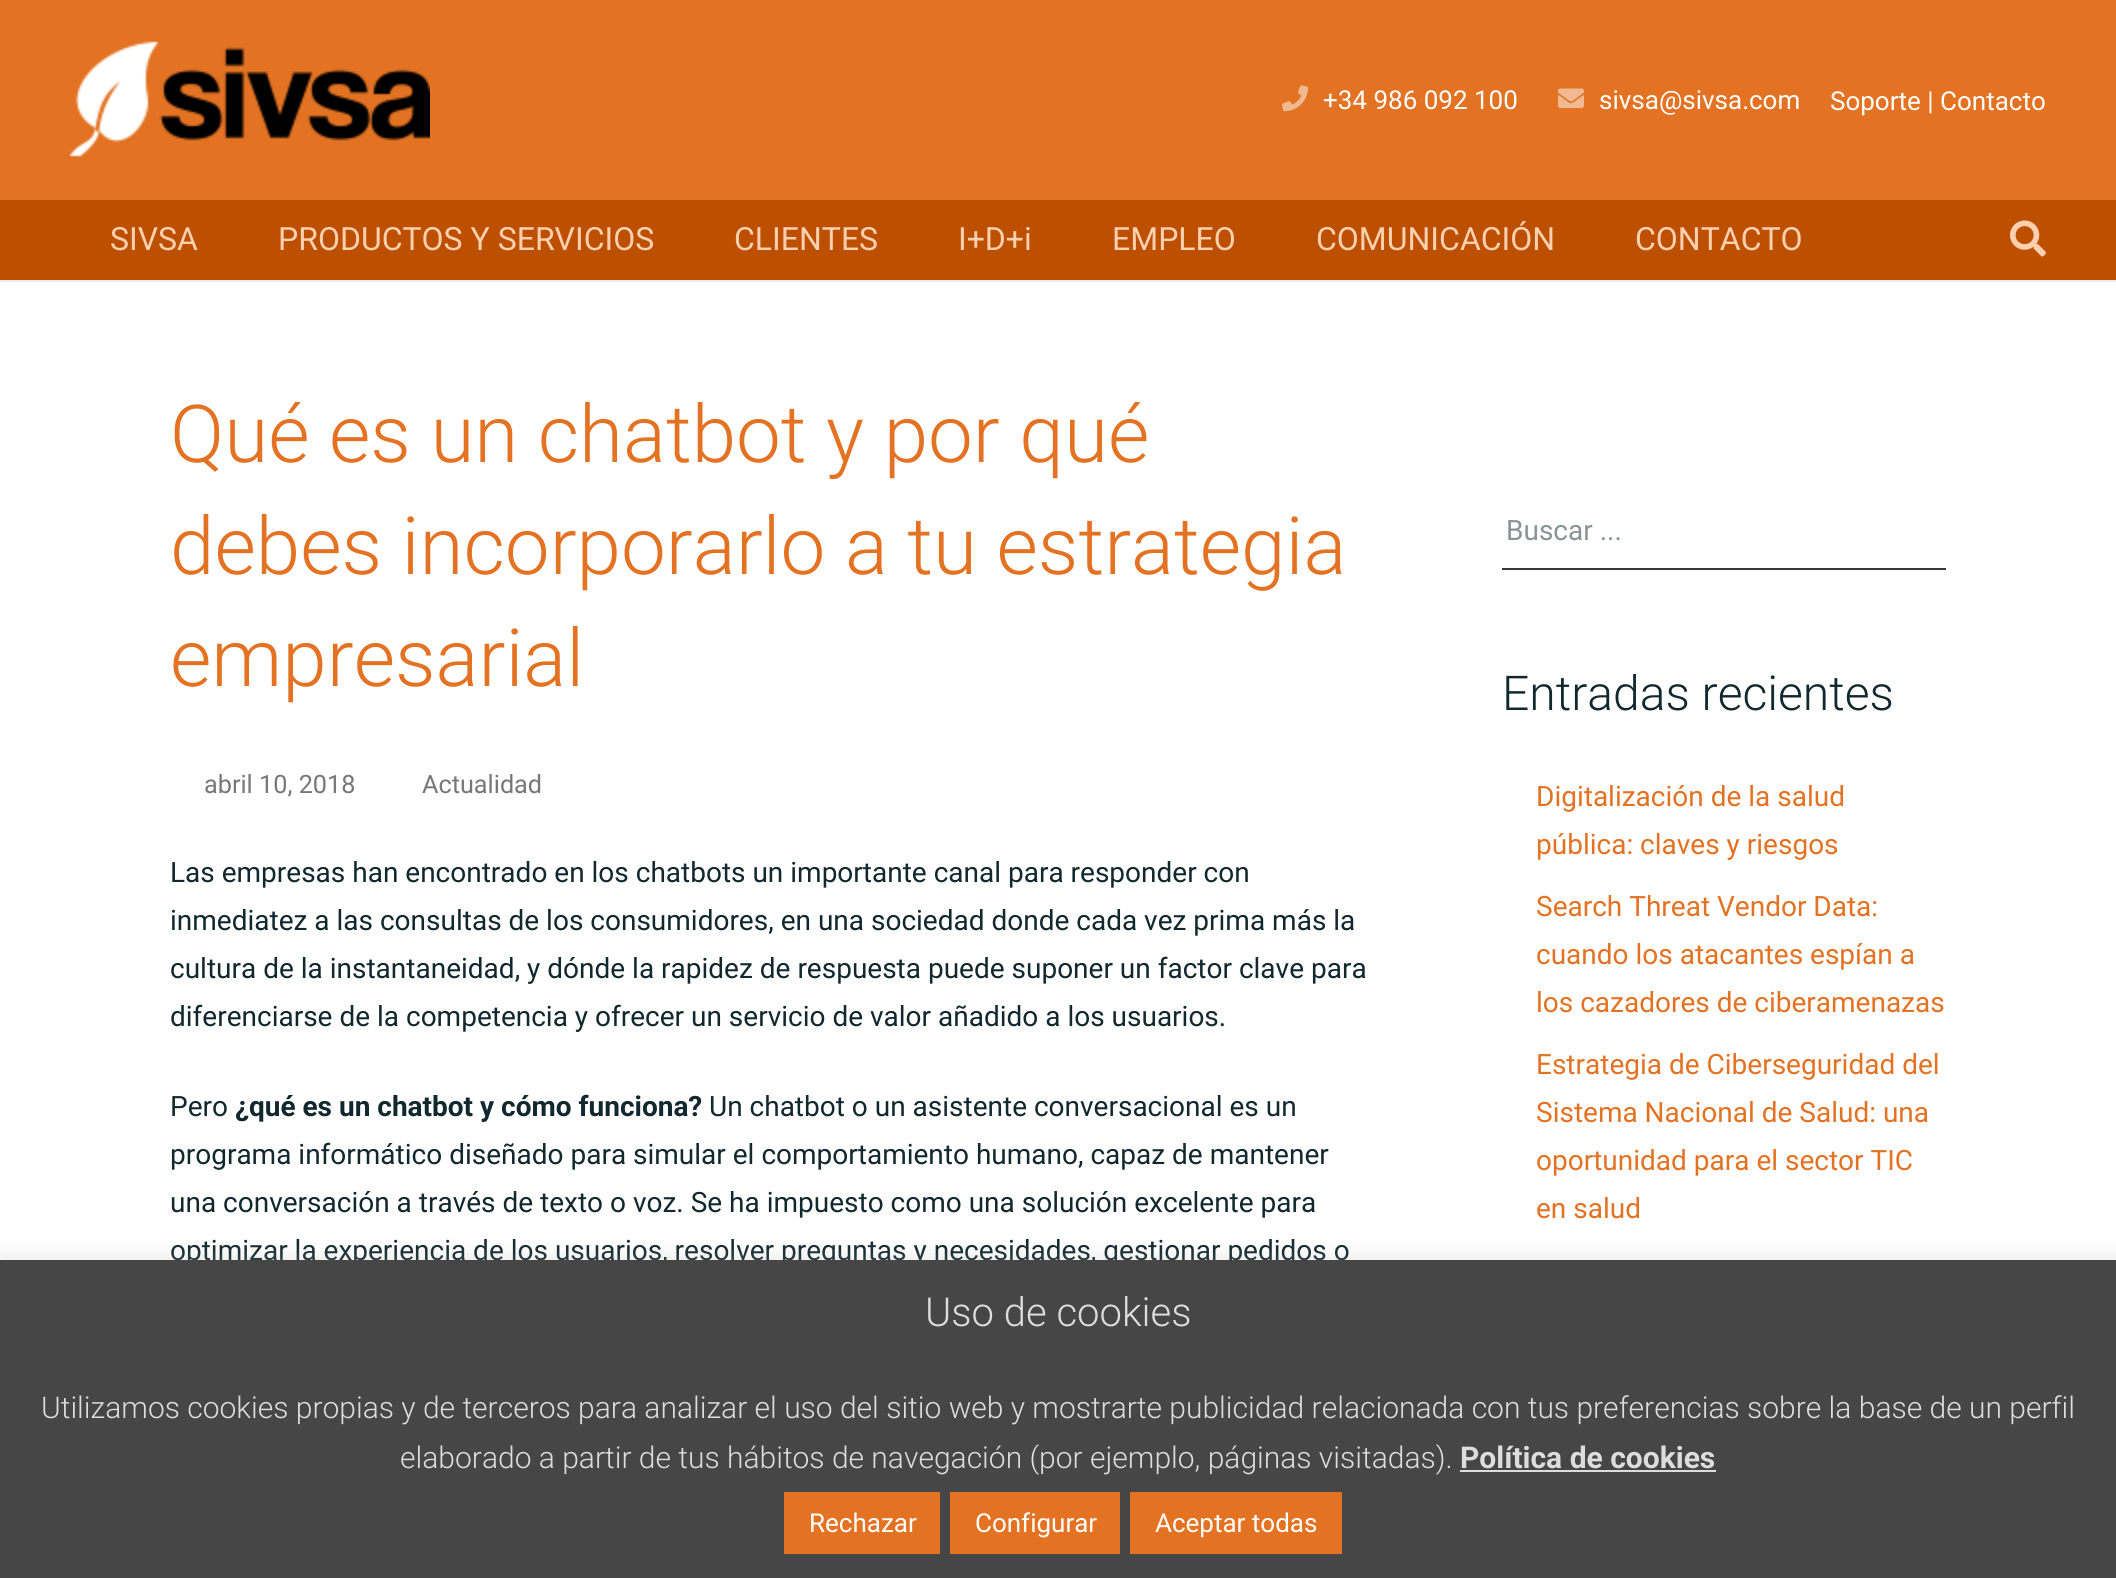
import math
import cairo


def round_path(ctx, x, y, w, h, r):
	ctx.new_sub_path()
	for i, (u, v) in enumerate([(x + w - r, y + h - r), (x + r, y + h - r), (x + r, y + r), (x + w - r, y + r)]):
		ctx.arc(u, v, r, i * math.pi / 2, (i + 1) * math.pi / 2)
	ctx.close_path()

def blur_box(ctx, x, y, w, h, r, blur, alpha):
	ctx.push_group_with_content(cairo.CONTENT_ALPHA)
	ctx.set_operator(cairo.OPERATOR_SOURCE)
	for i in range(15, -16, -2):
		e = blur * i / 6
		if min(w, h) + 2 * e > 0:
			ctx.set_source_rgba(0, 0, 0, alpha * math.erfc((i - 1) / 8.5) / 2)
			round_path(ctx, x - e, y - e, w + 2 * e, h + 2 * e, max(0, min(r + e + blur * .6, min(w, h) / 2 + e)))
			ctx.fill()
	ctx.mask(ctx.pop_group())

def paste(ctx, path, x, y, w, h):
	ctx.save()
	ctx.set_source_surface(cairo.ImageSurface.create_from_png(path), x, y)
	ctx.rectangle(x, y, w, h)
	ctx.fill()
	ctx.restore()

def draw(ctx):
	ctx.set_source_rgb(1, 1, 1)
	ctx.paint()
	ctx.set_source_rgb(0.89, 0.447, 0.133)
	ctx.rectangle(0, 0, 2116, 200)
	ctx.fill()
	paste(ctx, 'media/1.png', 70, 41, 360, 116)
	paste(ctx, 'media/2.png', 1282, 85, 26, 27)
	ctx.select_font_face('Roboto')
	ctx.set_font_size(26)
	ctx.set_source_rgb(1, 1, 1)
	ctx.move_to(1323, 109)
	ctx.show_text('+34 986 092 100')
	paste(ctx, 'media/3.png', 1558, 88, 26, 20)
	ctx.move_to(1599, 109)
	ctx.show_text('sivsa@sivsa.com')
	ctx.move_to(1830, 110)
	ctx.show_text('Soporte | Contacto')
	ctx.set_source_rgb(0.922, 0.922, 0.922)
	ctx.rectangle(0, 280, 2116, 2)
	ctx.fill()
	ctx.set_source_rgb(0.741, 0.31, 0.004)
	ctx.rectangle(0, 200, 2116, 80)
	ctx.fill()
	ctx.set_font_size(32)
	ctx.set_source_rgb(1, 0.816, 0.686)
	for x, y, s in [
		(110, 250, 'SIVSA'),
		(278, 250, 'PRODUCTOS Y SERVICIOS'),
		(734, 250, 'CLIENTES'),
		(958, 250, 'I+D+i'),
		(1112, 250, 'EMPLEO'),
		(1316, 250, 'COMUNICACIÓN'),
		(1635, 250, 'CONTACTO'),
	]:
		ctx.move_to(x, y)
		ctx.show_text(s)
	paste(ctx, 'media/4.png', 2010, 220, 36, 37)
	ctx.select_font_face('Roboto Light')
	ctx.set_font_size(80)
	ctx.set_source_rgb(0.89, 0.447, 0.133)
	for x, y, s in [
		(170, 462, 'Qué es un chatbot y por qué'),
		(170, 574, 'debes incorporarlo a tu estrategia'),
		(170, 686, 'empresarial'),
	]:
		ctx.move_to(x, y)
		ctx.show_text(s)
	ctx.select_font_face('Roboto')
	ctx.set_font_size(25.25)
	ctx.set_source_rgb(0.467, 0.467, 0.467)
	ctx.move_to(204, 793)
	ctx.show_text('abril 10, 2018')
	ctx.move_to(422, 793)
	ctx.show_text('Actualidad')
	ctx.set_font_size(28)
	ctx.set_source_rgb(0.067, 0.157, 0.18)
	for x, y, s in [
		(170, 882, 'Las empresas han encontrado en los chatbots un importante canal para responder con'),
		(170, 930, 'inmediatez a las consultas de los consumidores, en una sociedad donde cada vez prima más la'),
		(170, 978, 'cultura de la instantaneidad, y dónde la rapidez de respuesta puede suponer un factor clave para'),
		(170, 1026, 'diferenciarse de la competencia y ofrecer un servicio de valor añadido a los usuarios.'),
		(170, 1116, 'Pero'),
	]:
		ctx.move_to(x, y)
		ctx.show_text(s)
	ctx.select_font_face('Roboto', cairo.FONT_SLANT_NORMAL, cairo.FONT_WEIGHT_BOLD)
	ctx.move_to(235, 1116)
	ctx.show_text('¿qué es un chatbot y cómo funciona?')
	ctx.select_font_face('Roboto')
	for x, y, s in [
		(709, 1116, 'Un chatbot o un asistente conversacional es un'),
		(170, 1164, 'programa informático diseñado para simular el comportamiento humano, capaz de mantener'),
		(170, 1212, 'una conversación a través de texto o voz. Se ha impuesto como una solución excelente para'),
		(170, 1260, 'optimizar la experiencia de los usuarios, resolver preguntas y necesidades, gestionar pedidos o'),
	]:
		ctx.move_to(x, y)
		ctx.show_text(s)
	ctx.set_source_rgb(0.224, 0.224, 0.224)
	ctx.rectangle(1502, 568, 444, 2)
	ctx.fill()
	ctx.set_source_rgb(0.533, 0.58, 0.592)
	ctx.move_to(1506, 540)
	ctx.show_text('Buscar ...')
	ctx.select_font_face('Roboto Light')
	ctx.set_font_size(48)
	ctx.set_source_rgb(0.067, 0.157, 0.18)
	ctx.move_to(1502, 710)
	ctx.show_text('Entradas recientes')
	ctx.select_font_face('Roboto')
	ctx.set_font_size(28)
	ctx.set_source_rgb(0.89, 0.447, 0.133)
	for x, y, s in [
		(1536, 806, 'Digitalización de la salud'),
		(1536, 854, 'pública: claves y riesgos'),
		(1536, 916, 'Search Threat Vendor Data:'),
		(1536, 964, 'cuando los atacantes espían a'),
		(1536, 1012, 'los cazadores de ciberamenazas'),
		(1536, 1074, 'Estrategia de Ciberseguridad del'),
		(1536, 1122, 'Sistema Nacional de Salud: una'),
		(1536, 1170, 'oportunidad para el sector TIC'),
		(1536, 1218, 'en salud'),
	]:
		ctx.move_to(x, y)
		ctx.show_text(s)
	ctx.set_source_rgb(0.675, 0.671, 0.671)
	blur_box(ctx, 0, 1258, 2116, 318, 0, 10, 0.3)
	ctx.set_source_rgb(0.275, 0.275, 0.275)
	ctx.rectangle(0, 1260, 2116, 318)
	ctx.fill()
	ctx.select_font_face('Roboto Light')
	ctx.set_font_size(40)
	ctx.set_source_rgb(0.867, 0.867, 0.867)
	ctx.move_to(925, 1326)
	ctx.show_text('Uso de cookies')
	ctx.set_font_size(30)
	ctx.move_to(41, 1418)
	ctx.show_text('Utilizamos cookies propias y de terceros para analizar el uso del sitio web y mostrarte publicidad relacionada con tus preferencias sobre la base de un perfil')
	ctx.move_to(400, 1468)
	ctx.show_text('elaborado a partir de tus hábitos de navegación (por ejemplo, páginas visitadas).')
	ctx.select_font_face('Roboto', cairo.FONT_SLANT_NORMAL, cairo.FONT_WEIGHT_BOLD)
	ctx.move_to(1460, 1468)
	ctx.show_text('Política de cookies')
	ctx.rectangle(1460, 1470, 256, 2)
	ctx.fill()
	ctx.set_source_rgb(0.89, 0.447, 0.133)
	ctx.rectangle(784, 1492, 156, 62)
	ctx.fill()
	ctx.select_font_face('Roboto')
	ctx.set_font_size(26)
	ctx.set_source_rgb(1, 1, 1)
	ctx.move_to(809, 1532)
	ctx.show_text('Rechazar')
	ctx.set_source_rgb(0.89, 0.447, 0.133)
	ctx.rectangle(950, 1492, 170, 62)
	ctx.fill()
	ctx.set_source_rgb(1, 1, 1)
	ctx.move_to(975, 1532)
	ctx.show_text('Configurar')
	ctx.set_source_rgb(0.89, 0.447, 0.133)
	ctx.rectangle(1130, 1492, 212, 62)
	ctx.fill()
	ctx.set_source_rgb(1, 1, 1)
	ctx.move_to(1155, 1532)
	ctx.show_text('Aceptar todas')


surface = cairo.ImageSurface(cairo.FORMAT_RGB24, 2116, 1578)
ctx = cairo.Context(surface)
options = cairo.FontOptions()
options.set_hint_metrics(cairo.HINT_METRICS_OFF)
options.set_hint_style(cairo.HINT_STYLE_NONE)
ctx.set_font_options(options)
ctx.set_miter_limit(4)
draw(ctx)
surface.write_to_png('image.png')
